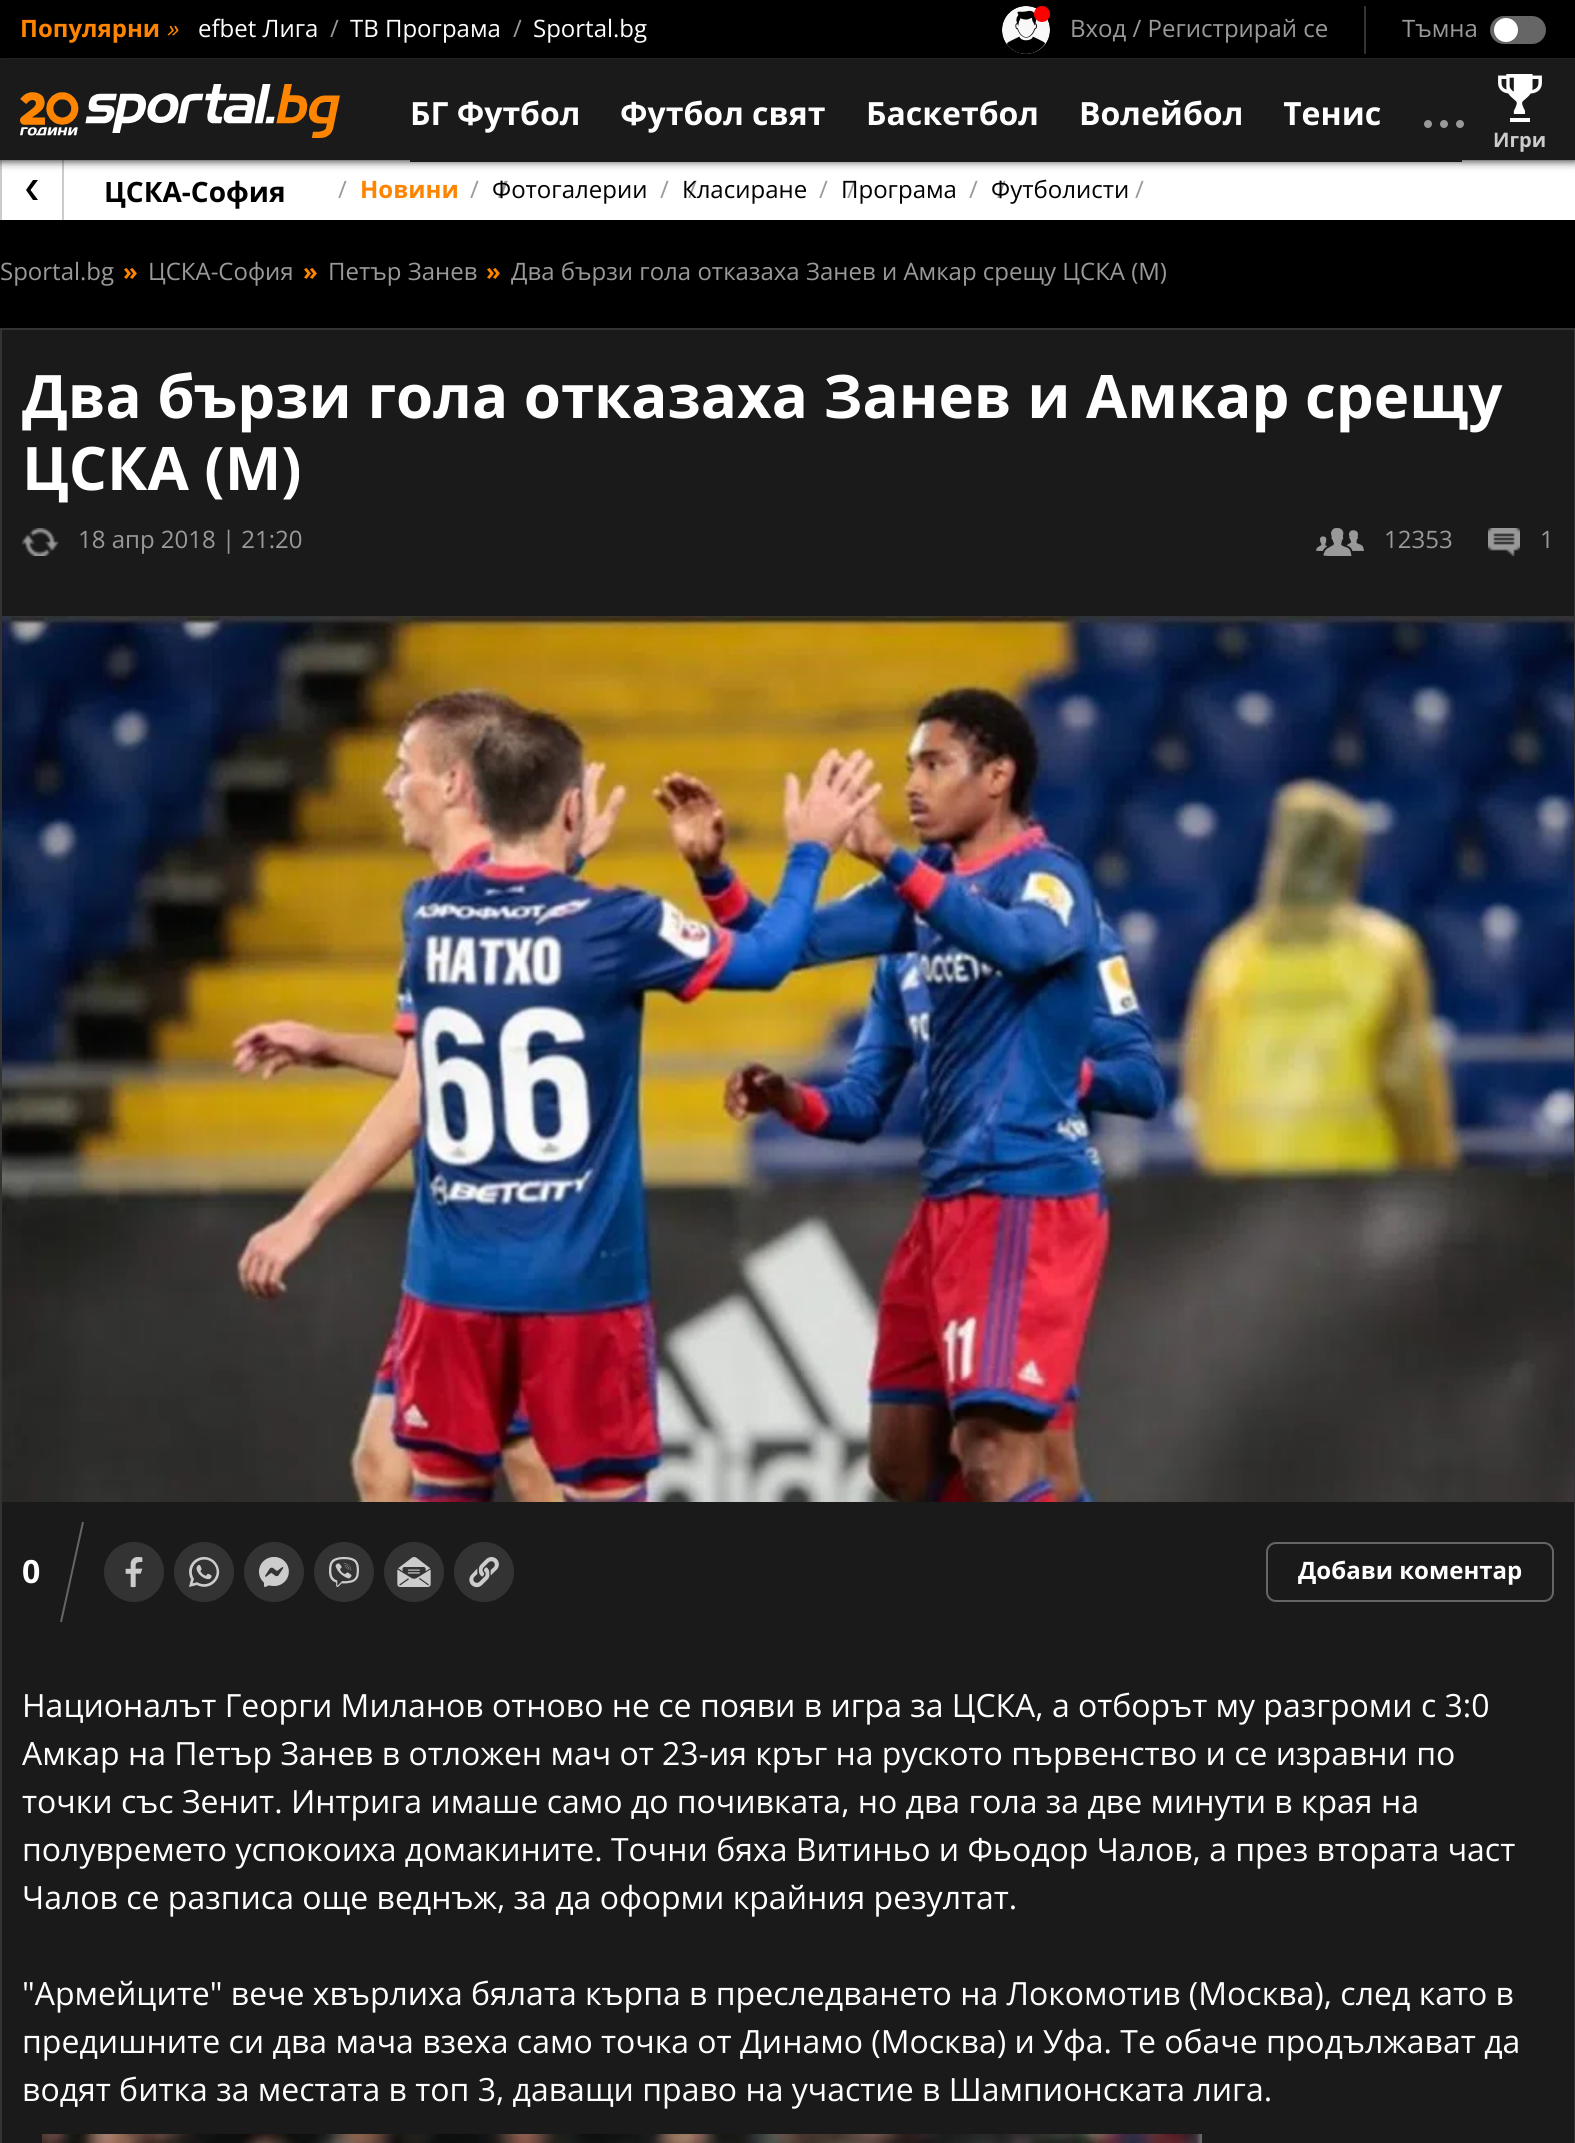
import math
import cairo


def round_path(ctx, x, y, w, h, r):
	ctx.new_sub_path()
	for i, (u, v) in enumerate([(x + w - r, y + h - r), (x + r, y + h - r), (x + r, y + r), (x + w - r, y + r)]):
		ctx.arc(u, v, r, i * math.pi / 2, (i + 1) * math.pi / 2)
	ctx.close_path()

def blur_box(ctx, x, y, w, h, r, blur, alpha):
	ctx.push_group_with_content(cairo.CONTENT_ALPHA)
	ctx.set_operator(cairo.OPERATOR_SOURCE)
	for i in range(15, -16, -2):
		e = blur * i / 6
		if min(w, h) + 2 * e > 0:
			ctx.set_source_rgba(0, 0, 0, alpha * math.erfc((i - 1) / 8.5) / 2)
			round_path(ctx, x - e, y - e, w + 2 * e, h + 2 * e, max(0, min(r + e + blur * .6, min(w, h) / 2 + e)))
			ctx.fill()
	ctx.mask(ctx.pop_group())

def paste(ctx, path, x, y, w, h):
	ctx.save()
	ctx.set_source_surface(cairo.ImageSurface.create_from_png(path), x, y)
	ctx.rectangle(x, y, w, h)
	ctx.fill()
	ctx.restore()

def draw(ctx):
	ctx.set_source_rgb(0, 0, 0)
	ctx.paint()
	ctx.set_source_rgb(0.2, 0.2, 0.2)
	ctx.rectangle(0, 58, 1575, 2)
	ctx.fill()
	ctx.select_font_face('Open Sans', cairo.FONT_SLANT_NORMAL, cairo.FONT_WEIGHT_BOLD)
	ctx.set_font_size(24)
	ctx.set_source_rgb(1, 0.518, 0)
	ctx.move_to(20, 37)
	ctx.show_text('Популярни')
	ctx.select_font_face('Open Sans', cairo.FONT_SLANT_ITALIC)
	ctx.move_to(166, 37)
	ctx.show_text('»')
	ctx.select_font_face('Open Sans')
	ctx.set_source_rgb(1, 1, 1)
	ctx.move_to(198, 37)
	ctx.show_text('efbet Лига')
	ctx.set_source_rgb(0.6, 0.6, 0.6)
	ctx.move_to(330, 37)
	ctx.show_text('/')
	ctx.set_source_rgb(1, 1, 1)
	ctx.move_to(350, 37)
	ctx.show_text('ТВ Програма')
	ctx.set_source_rgb(0.6, 0.6, 0.6)
	ctx.move_to(513, 37)
	ctx.show_text('/')
	ctx.set_source_rgb(1, 1, 1)
	ctx.move_to(533, 37)
	ctx.show_text('Sportal.bg')
	paste(ctx, 'media/1.png', 1002, 6, 48, 48)
	ctx.set_source_rgb(1, 0, 0)
	ctx.arc(1042, 14, 8, 0, 2 * math.pi)
	ctx.fill()
	ctx.set_source_rgb(0.6, 0.6, 0.6)
	ctx.move_to(1070, 37)
	ctx.show_text('Вход / Регистрирай се')
	ctx.set_source_rgb(0.2, 0.2, 0.2)
	ctx.rectangle(1364, 6, 2, 48)
	ctx.fill()
	ctx.set_source_rgb(0.6, 0.6, 0.6)
	ctx.move_to(1402, 37)
	ctx.show_text('Тъмна')
	ctx.set_source_rgb(0.4, 0.4, 0.4)
	round_path(ctx, 1490, 16, 56, 28, 14)
	ctx.fill()
	ctx.set_source_rgb(1, 1, 1)
	ctx.arc(1506, 30, 12, 0, 2 * math.pi)
	ctx.fill()
	ctx.rectangle(2, 160, 1573, 60)
	ctx.fill()
	ctx.set_source_rgb(0.8, 0.8, 0.8)
	ctx.rectangle(62, 160, 2, 60)
	ctx.rectangle(0, 160, 2, 60)
	ctx.fill()
	ctx.set_source_rgb(0, 0, 0)
	blur_box(ctx, 0, 60, 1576, 100, 0, 5, 0.99)
	ctx.set_source_rgb(0.102, 0.102, 0.102)
	ctx.rectangle(0, 60, 1575, 100)
	ctx.fill()
	paste(ctx, 'media/2.png', 20, 84, 320, 54)
	ctx.rectangle(410, 160, 1052, 2)
	ctx.fill()
	ctx.select_font_face('Open Sans', cairo.FONT_SLANT_NORMAL, cairo.FONT_WEIGHT_BOLD)
	ctx.set_font_size(32)
	ctx.set_source_rgb(1, 1, 1)
	for x, y, s in [
		(410, 125, 'БГ Футбол'),
		(620, 125, 'Футбол свят'),
		(866, 125, 'Баскетбол'),
		(1079, 125, 'Волейбол'),
	]:
		ctx.move_to(x, y)
		ctx.show_text(s)
	ctx.save()
	ctx.rectangle(1284, 66, 98, 96)
	ctx.clip()
	ctx.move_to(1283, 125)
	ctx.show_text('Тенис')
	ctx.restore()
	paste(ctx, 'media/3.png', 1424, 120, 40, 8)
	paste(ctx, 'media/4.png', 1498, 74, 44, 48)
	ctx.set_font_size(20)
	ctx.set_source_rgb(0.8, 0.8, 0.8)
	ctx.move_to(1493, 147)
	ctx.show_text('Игри')
	ctx.set_source_rgb(0, 0, 0)
	ctx.set_fill_rule(cairo.FILL_RULE_EVEN_ODD)
	ctx.new_path()
	ctx.move_to(38, 200)
	ctx.line_to(30.5, 190)
	ctx.line_to(38, 180)
	ctx.line_to(33, 180)
	ctx.line_to(26, 190)
	ctx.line_to(33, 200)
	ctx.close_path()
	ctx.fill()
	ctx.set_font_size(28)
	ctx.move_to(104, 202)
	ctx.show_text('ЦСКА-София')
	ctx.select_font_face('Open Sans')
	ctx.set_font_size(24)
	ctx.set_source_rgb(0.6, 0.6, 0.6)
	ctx.move_to(338, 198)
	ctx.show_text('/')
	ctx.select_font_face('Open Sans', cairo.FONT_SLANT_NORMAL, cairo.FONT_WEIGHT_BOLD)
	ctx.set_source_rgb(1, 0.518, 0)
	ctx.move_to(360, 198)
	ctx.show_text('Новини')
	ctx.set_source_rgb(0.6, 0.6, 0.6)
	ctx.move_to(498, 198)
	ctx.show_text('/')
	ctx.select_font_face('Open Sans')
	ctx.move_to(470, 198)
	ctx.show_text('/')
	ctx.set_source_rgb(0, 0, 0)
	ctx.move_to(492, 198)
	ctx.show_text('Фотогалерии')
	ctx.set_source_rgb(0.6, 0.6, 0.6)
	ctx.move_to(688, 198)
	ctx.show_text('/')
	ctx.move_to(660, 198)
	ctx.show_text('/')
	ctx.set_source_rgb(0, 0, 0)
	ctx.move_to(682, 198)
	ctx.show_text('Класиране')
	ctx.set_source_rgb(0.6, 0.6, 0.6)
	ctx.move_to(847, 198)
	ctx.show_text('/')
	ctx.move_to(819, 198)
	ctx.show_text('/')
	ctx.set_source_rgb(0, 0, 0)
	ctx.move_to(841, 198)
	ctx.show_text('Програма')
	ctx.set_source_rgb(0.6, 0.6, 0.6)
	ctx.move_to(997, 198)
	ctx.show_text('/')
	ctx.move_to(969, 198)
	ctx.show_text('/')
	ctx.set_source_rgb(0, 0, 0)
	ctx.move_to(991, 198)
	ctx.show_text('Футболисти')
	ctx.set_source_rgb(0.6, 0.6, 0.6)
	ctx.move_to(1135, 198)
	ctx.show_text('/')
	ctx.move_to(0, 280)
	ctx.show_text('Sportal.bg')
	ctx.select_font_face('Open Sans', cairo.FONT_SLANT_NORMAL, cairo.FONT_WEIGHT_BOLD)
	ctx.set_source_rgb(1, 0.518, 0)
	ctx.move_to(123, 280)
	ctx.show_text('»')
	ctx.select_font_face('Open Sans')
	ctx.set_source_rgb(0.6, 0.6, 0.6)
	ctx.move_to(148, 280)
	ctx.show_text('ЦСКА-София')
	ctx.select_font_face('Open Sans', cairo.FONT_SLANT_NORMAL, cairo.FONT_WEIGHT_BOLD)
	ctx.set_source_rgb(1, 0.518, 0)
	ctx.move_to(303, 280)
	ctx.show_text('»')
	ctx.select_font_face('Open Sans')
	ctx.set_source_rgb(0.6, 0.6, 0.6)
	ctx.move_to(328, 280)
	ctx.show_text('Петър Занев')
	ctx.select_font_face('Open Sans', cairo.FONT_SLANT_NORMAL, cairo.FONT_WEIGHT_BOLD)
	ctx.set_source_rgb(1, 0.518, 0)
	ctx.move_to(486, 280)
	ctx.show_text('»')
	ctx.select_font_face('Open Sans')
	ctx.set_source_rgb(0.6, 0.6, 0.6)
	ctx.move_to(511, 280)
	ctx.show_text('Два бързи гола отказаха Занев и Амкар срещу ЦСКА (М)')
	ctx.set_source_rgb(0.102, 0.102, 0.102)
	ctx.rectangle(1, 329, 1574, 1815)
	ctx.fill_preserve()
	ctx.set_source_rgb(0.2, 0.2, 0.2)
	ctx.stroke()
	ctx.select_font_face('Open Sans', cairo.FONT_SLANT_NORMAL, cairo.FONT_WEIGHT_BOLD)
	ctx.set_font_size(60)
	ctx.set_source_rgb(1, 1, 1)
	ctx.move_to(22, 418)
	ctx.show_text('Два бързи гола отказаха Занев и Амкар срещу')
	ctx.move_to(22, 490)
	ctx.show_text('ЦСКА (М)')
	paste(ctx, 'media/5.png', 22, 528, 36, 28)
	ctx.select_font_face('Open Sans')
	ctx.set_font_size(24)
	ctx.set_source_rgb(0.6, 0.6, 0.6)
	ctx.move_to(78, 548)
	ctx.show_text('18 апр 2018 | 21:20')
	paste(ctx, 'media/6.png', 1316, 528, 48, 28)
	ctx.move_to(1384, 548)
	ctx.show_text('12353')
	paste(ctx, 'media/7.png', 1488, 528, 32, 28)
	ctx.move_to(1540, 548)
	ctx.show_text('1')
	paste(ctx, 'media/8.png', 2, 616, 1572, 886)
	ctx.select_font_face('Open Sans', cairo.FONT_SLANT_NORMAL, cairo.FONT_WEIGHT_BOLD)
	ctx.set_font_size(32)
	ctx.set_source_rgb(1, 1, 1)
	ctx.move_to(22, 1583)
	ctx.show_text('0')
	ctx.set_source_rgb(0.4, 0.4, 0.4)
	ctx.new_path()
	ctx.move_to(84, 1522)
	ctx.line_to(62, 1622)
	ctx.line_to(60, 1622)
	ctx.line_to(82, 1522)
	ctx.close_path()
	ctx.fill()
	paste(ctx, 'media/9.png', 104, 1542, 60, 60)
	paste(ctx, 'media/10.png', 174, 1542, 60, 60)
	paste(ctx, 'media/11.png', 244, 1542, 60, 60)
	paste(ctx, 'media/12.png', 314, 1542, 60, 60)
	paste(ctx, 'media/13.png', 384, 1542, 60, 60)
	paste(ctx, 'media/14.png', 454, 1542, 60, 60)
	round_path(ctx, 1267, 1543, 286, 58, 9)
	ctx.stroke()
	ctx.set_font_size(24)
	ctx.set_source_rgb(1, 1, 1)
	ctx.move_to(1298, 1579)
	ctx.show_text('Добави коментар')
	ctx.select_font_face('Open Sans')
	ctx.set_font_size(32)
	for x, y, s in [
		(22, 1717, 'Националът Георги Миланов отново не се появи в игра за ЦСКА, а отборът му разгроми с 3:0'),
		(22, 1765, 'Амкар на Петър Занев в отложен мач от 23-ия кръг на руското първенство и се изравни по'),
		(22, 1813, 'точки със Зенит. Интрига имаше само до почивката, но два гола за две минути в края на'),
		(22, 1861, 'полувремето успокоиха домакините. Точни бяха Витиньо и Фьодор Чалов, а през втората част'),
		(22, 1909, 'Чалов се разписа още веднъж, за да оформи крайния резултат.'),
		(22, 2005, '"Армейците" вече хвърлиха бялата кърпа в преследването на Локомотив (Москва), след като в'),
		(22, 2053, 'предишните си два мача взеха само точка от Динамо (Москва) и Уфа. Те обаче продължават да'),
		(22, 2101, 'водят битка за местата в топ 3, даващи право на участие в Шампионската лига.'),
	]:
		ctx.move_to(x, y)
		ctx.show_text(s)
	paste(ctx, 'media/15.png', 42, 2134, 1160, 9)


surface = cairo.ImageSurface(cairo.FORMAT_RGB24, 1575, 2143)
ctx = cairo.Context(surface)
options = cairo.FontOptions()
options.set_hint_metrics(cairo.HINT_METRICS_OFF)
options.set_hint_style(cairo.HINT_STYLE_NONE)
ctx.set_font_options(options)
ctx.set_miter_limit(4)
draw(ctx)
surface.write_to_png('image.png')
